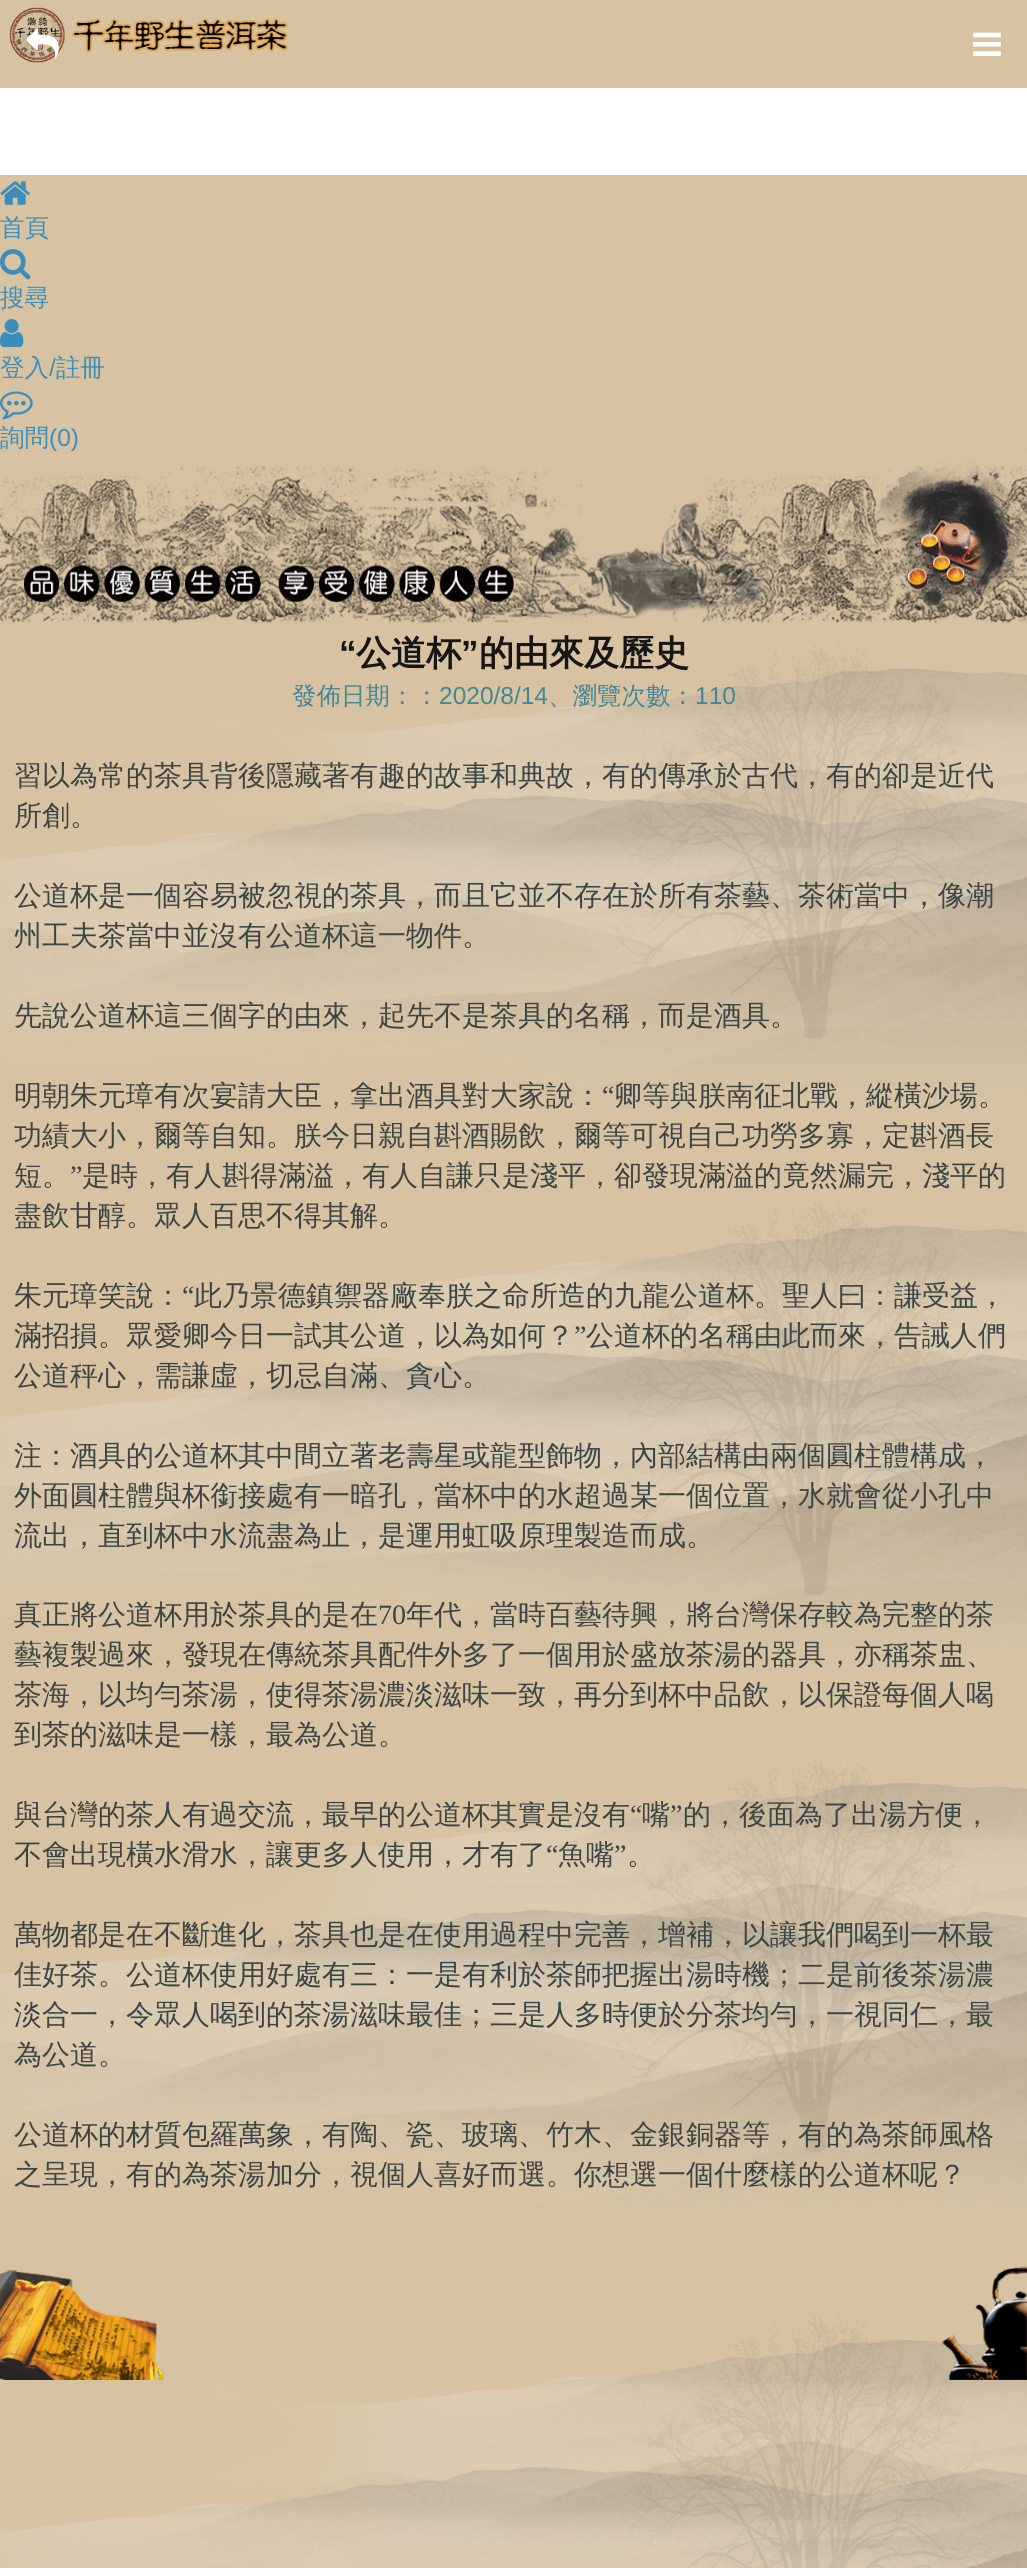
import math
import cairo


def paste(ctx, path, x, y, w, h):
	ctx.save()
	ctx.set_source_surface(cairo.ImageSurface.create_from_png(path), x, y)
	ctx.rectangle(x, y, w, h)
	ctx.fill()
	ctx.restore()

def draw(ctx):
	ctx.set_source_rgb(0.843, 0.765, 0.635)
	ctx.paint()
	ctx.set_source_rgb(1, 1, 1)
	ctx.rectangle(0, 88, 1027, 87)
	ctx.fill()
	paste(ctx, 'media/1.png', 9, 7, 280, 56)
	paste(ctx, 'media/2.png', 26, 29, 33, 30)
	paste(ctx, 'media/3.png', 973, 32, 28, 24)
	paste(ctx, 'media/4.png', 0, 181, 30, 24)
	ctx.select_font_face('WenQuanYi Zen Hei Medium')
	ctx.set_font_size(24.5)
	ctx.set_source_rgb(0.235, 0.553, 0.737)
	ctx.move_to(0, 236)
	ctx.show_text('首頁')
	paste(ctx, 'media/5.png', 0, 249, 31, 31)
	ctx.move_to(0, 306)
	ctx.show_text('搜尋')
	paste(ctx, 'media/6.png', 0, 319, 24, 29)
	ctx.move_to(0, 376)
	ctx.show_text('登入')
	ctx.select_font_face('Liberation Sans')
	ctx.move_to(49, 376)
	ctx.show_text('/')
	ctx.select_font_face('WenQuanYi Zen Hei Medium')
	ctx.move_to(56, 376)
	ctx.show_text('註冊')
	paste(ctx, 'media/7.png', 0, 391, 33, 29)
	ctx.move_to(0, 446)
	ctx.show_text('詢問')
	ctx.select_font_face('Liberation Sans')
	ctx.move_to(49, 446)
	ctx.show_text('(0)')
	paste(ctx, 'media/8.png', 0, 455, 1027, 173)
	paste(ctx, 'media/9.png', 0, 638, 1027, 1930)
	ctx.select_font_face('Liberation Sans', cairo.FONT_SLANT_NORMAL, cairo.FONT_WEIGHT_BOLD)
	ctx.set_font_size(35)
	ctx.set_source_rgb(0.086, 0.086, 0.086)
	ctx.move_to(339, 665)
	ctx.show_text('“')
	ctx.select_font_face('WenQuanYi Zen Hei', cairo.FONT_SLANT_NORMAL, cairo.FONT_WEIGHT_BOLD)
	ctx.move_to(356, 665)
	ctx.show_text('公道杯')
	ctx.select_font_face('Liberation Sans', cairo.FONT_SLANT_NORMAL, cairo.FONT_WEIGHT_BOLD)
	ctx.move_to(461, 665)
	ctx.show_text('”')
	ctx.select_font_face('WenQuanYi Zen Hei', cairo.FONT_SLANT_NORMAL, cairo.FONT_WEIGHT_BOLD)
	ctx.move_to(479, 665)
	ctx.show_text('的由來及歷史')
	ctx.select_font_face('WenQuanYi Zen Hei Medium')
	ctx.set_font_size(24.5)
	ctx.set_source_rgb(0.267, 0.525, 0.592)
	ctx.move_to(292, 704)
	ctx.show_text('發佈日期：：')
	ctx.select_font_face('Liberation Sans')
	ctx.move_to(439, 704)
	ctx.show_text('2020/8/14')
	ctx.select_font_face('WenQuanYi Zen Hei Medium')
	ctx.move_to(548, 704)
	ctx.show_text('、瀏覽次數：')
	ctx.select_font_face('Liberation Sans')
	ctx.move_to(695, 704)
	ctx.show_text('110')
	ctx.select_font_face('WenQuanYi Zen Hei Medium')
	ctx.set_font_size(28)
	ctx.set_source_rgb(0.239, 0.267, 0.267)
	for x, y, s in [
		(14, 785, '習以為常的茶具背後隱藏著有趣的故事和典故，有的傳承於古代，有的卻是近代'),
		(14, 825, '所創。'),
		(14, 905, '公道杯是一個容易被忽視的茶具，而且它並不存在於所有茶藝、茶術當中，像潮'),
		(14, 945, '州工夫茶當中並沒有公道杯這一物件。'),
		(14, 1025, '先說公道杯這三個字的由來，起先不是茶具的名稱，而是酒具。'),
		(14, 1105, '明朝朱元璋有次宴請大臣，拿出酒具對大家說：'),
	]:
		ctx.move_to(x, y)
		ctx.show_text(s)
	ctx.select_font_face('Liberation Serif')
	ctx.move_to(602, 1105)
	ctx.show_text('“')
	ctx.select_font_face('WenQuanYi Zen Hei Medium')
	for x, y, s in [
		(614, 1105, '卿等與朕南征北戰，縱橫沙場。'),
		(14, 1145, '功績大小，爾等自知。朕今日親自斟酒賜飲，爾等可視自己功勞多寡，定斟酒長'),
		(14, 1185, '短。'),
	]:
		ctx.move_to(x, y)
		ctx.show_text(s)
	ctx.select_font_face('Liberation Serif')
	ctx.move_to(70, 1185)
	ctx.show_text('”')
	ctx.select_font_face('WenQuanYi Zen Hei Medium')
	for x, y, s in [
		(82, 1185, '是時，有人斟得滿溢，有人自謙只是淺平，卻發現滿溢的竟然漏完，淺平的'),
		(14, 1225, '盡飲甘醇。眾人百思不得其解。'),
		(14, 1305, '朱元璋笑說：'),
	]:
		ctx.move_to(x, y)
		ctx.show_text(s)
	ctx.select_font_face('Liberation Serif')
	ctx.move_to(182, 1305)
	ctx.show_text('“')
	ctx.select_font_face('WenQuanYi Zen Hei Medium')
	ctx.move_to(194, 1305)
	ctx.show_text('此乃景德鎮禦器廠奉朕之命所造的九龍公道杯。聖人曰：謙受益，')
	ctx.move_to(14, 1345)
	ctx.show_text('滿招損。眾愛卿今日一試其公道，以為如何？')
	ctx.select_font_face('Liberation Serif')
	ctx.move_to(574, 1345)
	ctx.show_text('”')
	ctx.select_font_face('WenQuanYi Zen Hei Medium')
	for x, y, s in [
		(586, 1345, '公道杯的名稱由此而來，告誡人們'),
		(14, 1385, '公道秤心，需謙虛，切忌自滿、貪心。'),
		(14, 1465, '注：酒具的公道杯其中間立著老壽星或龍型飾物，內部結構由兩個圓柱體構成，'),
		(14, 1505, '外面圓柱體與杯銜接處有一暗孔，當杯中的水超過某一個位置，水就會從小孔中'),
		(14, 1545, '流出，直到杯中水流盡為止，是運用虹吸原理製造而成。'),
		(14, 1624, '真正將公道杯用於茶具的是在'),
	]:
		ctx.move_to(x, y)
		ctx.show_text(s)
	ctx.select_font_face('Liberation Serif')
	ctx.move_to(378, 1624)
	ctx.show_text('70')
	ctx.select_font_face('WenQuanYi Zen Hei Medium')
	for x, y, s in [
		(406, 1624, '年代，當時百藝待興，將台灣保存較為完整的茶'),
		(14, 1664, '藝複製過來，發現在傳統茶具配件外多了一個用於盛放茶湯的器具，亦稱茶盅、'),
		(14, 1704, '茶海，以均勻茶湯，使得茶湯濃淡滋味一致，再分到杯中品飲，以保證每個人喝'),
		(14, 1744, '到茶的滋味是一樣，最為公道。'),
		(14, 1824, '與台灣的茶人有過交流，最早的公道杯其實是沒有'),
	]:
		ctx.move_to(x, y)
		ctx.show_text(s)
	ctx.select_font_face('Liberation Serif')
	ctx.move_to(630, 1824)
	ctx.show_text('“')
	ctx.select_font_face('WenQuanYi Zen Hei Medium')
	ctx.move_to(642, 1824)
	ctx.show_text('嘴')
	ctx.select_font_face('Liberation Serif')
	ctx.move_to(670, 1824)
	ctx.show_text('”')
	ctx.select_font_face('WenQuanYi Zen Hei Medium')
	ctx.move_to(683, 1824)
	ctx.show_text('的，後面為了出湯方便，')
	ctx.move_to(14, 1864)
	ctx.show_text('不會出現橫水滑水，讓更多人使用，才有了')
	ctx.select_font_face('Liberation Serif')
	ctx.move_to(546, 1864)
	ctx.show_text('“')
	ctx.select_font_face('WenQuanYi Zen Hei Medium')
	ctx.move_to(558, 1864)
	ctx.show_text('魚嘴')
	ctx.select_font_face('Liberation Serif')
	ctx.move_to(614, 1864)
	ctx.show_text('”')
	ctx.select_font_face('WenQuanYi Zen Hei Medium')
	for x, y, s in [
		(627, 1864, '。'),
		(14, 1944, '萬物都是在不斷進化，茶具也是在使用過程中完善，增補，以讓我們喝到一杯最'),
		(14, 1984, '佳好茶。公道杯使用好處有三：一是有利於茶師把握出湯時機；二是前後茶湯濃'),
		(14, 2024, '淡合一，令眾人喝到的茶湯滋味最佳；三是人多時便於分茶均勻，一視同仁，最'),
		(14, 2064, '為公道。'),
		(14, 2144, '公道杯的材質包羅萬象，有陶、瓷、玻璃、竹木、金銀銅器等，有的為茶師風格'),
		(14, 2184, '之呈現，有的為茶湯加分，視個人喜好而選。你想選一個什麼樣的公道杯呢？'),
	]:
		ctx.move_to(x, y)
		ctx.show_text(s)
	paste(ctx, 'media/10.png', 0, 2266, 1027, 114)


surface = cairo.ImageSurface(cairo.FORMAT_RGB24, 1027, 2568)
ctx = cairo.Context(surface)
options = cairo.FontOptions()
options.set_hint_metrics(cairo.HINT_METRICS_OFF)
options.set_hint_style(cairo.HINT_STYLE_NONE)
ctx.set_font_options(options)
ctx.set_miter_limit(4)
draw(ctx)
surface.write_to_png('image.png')
